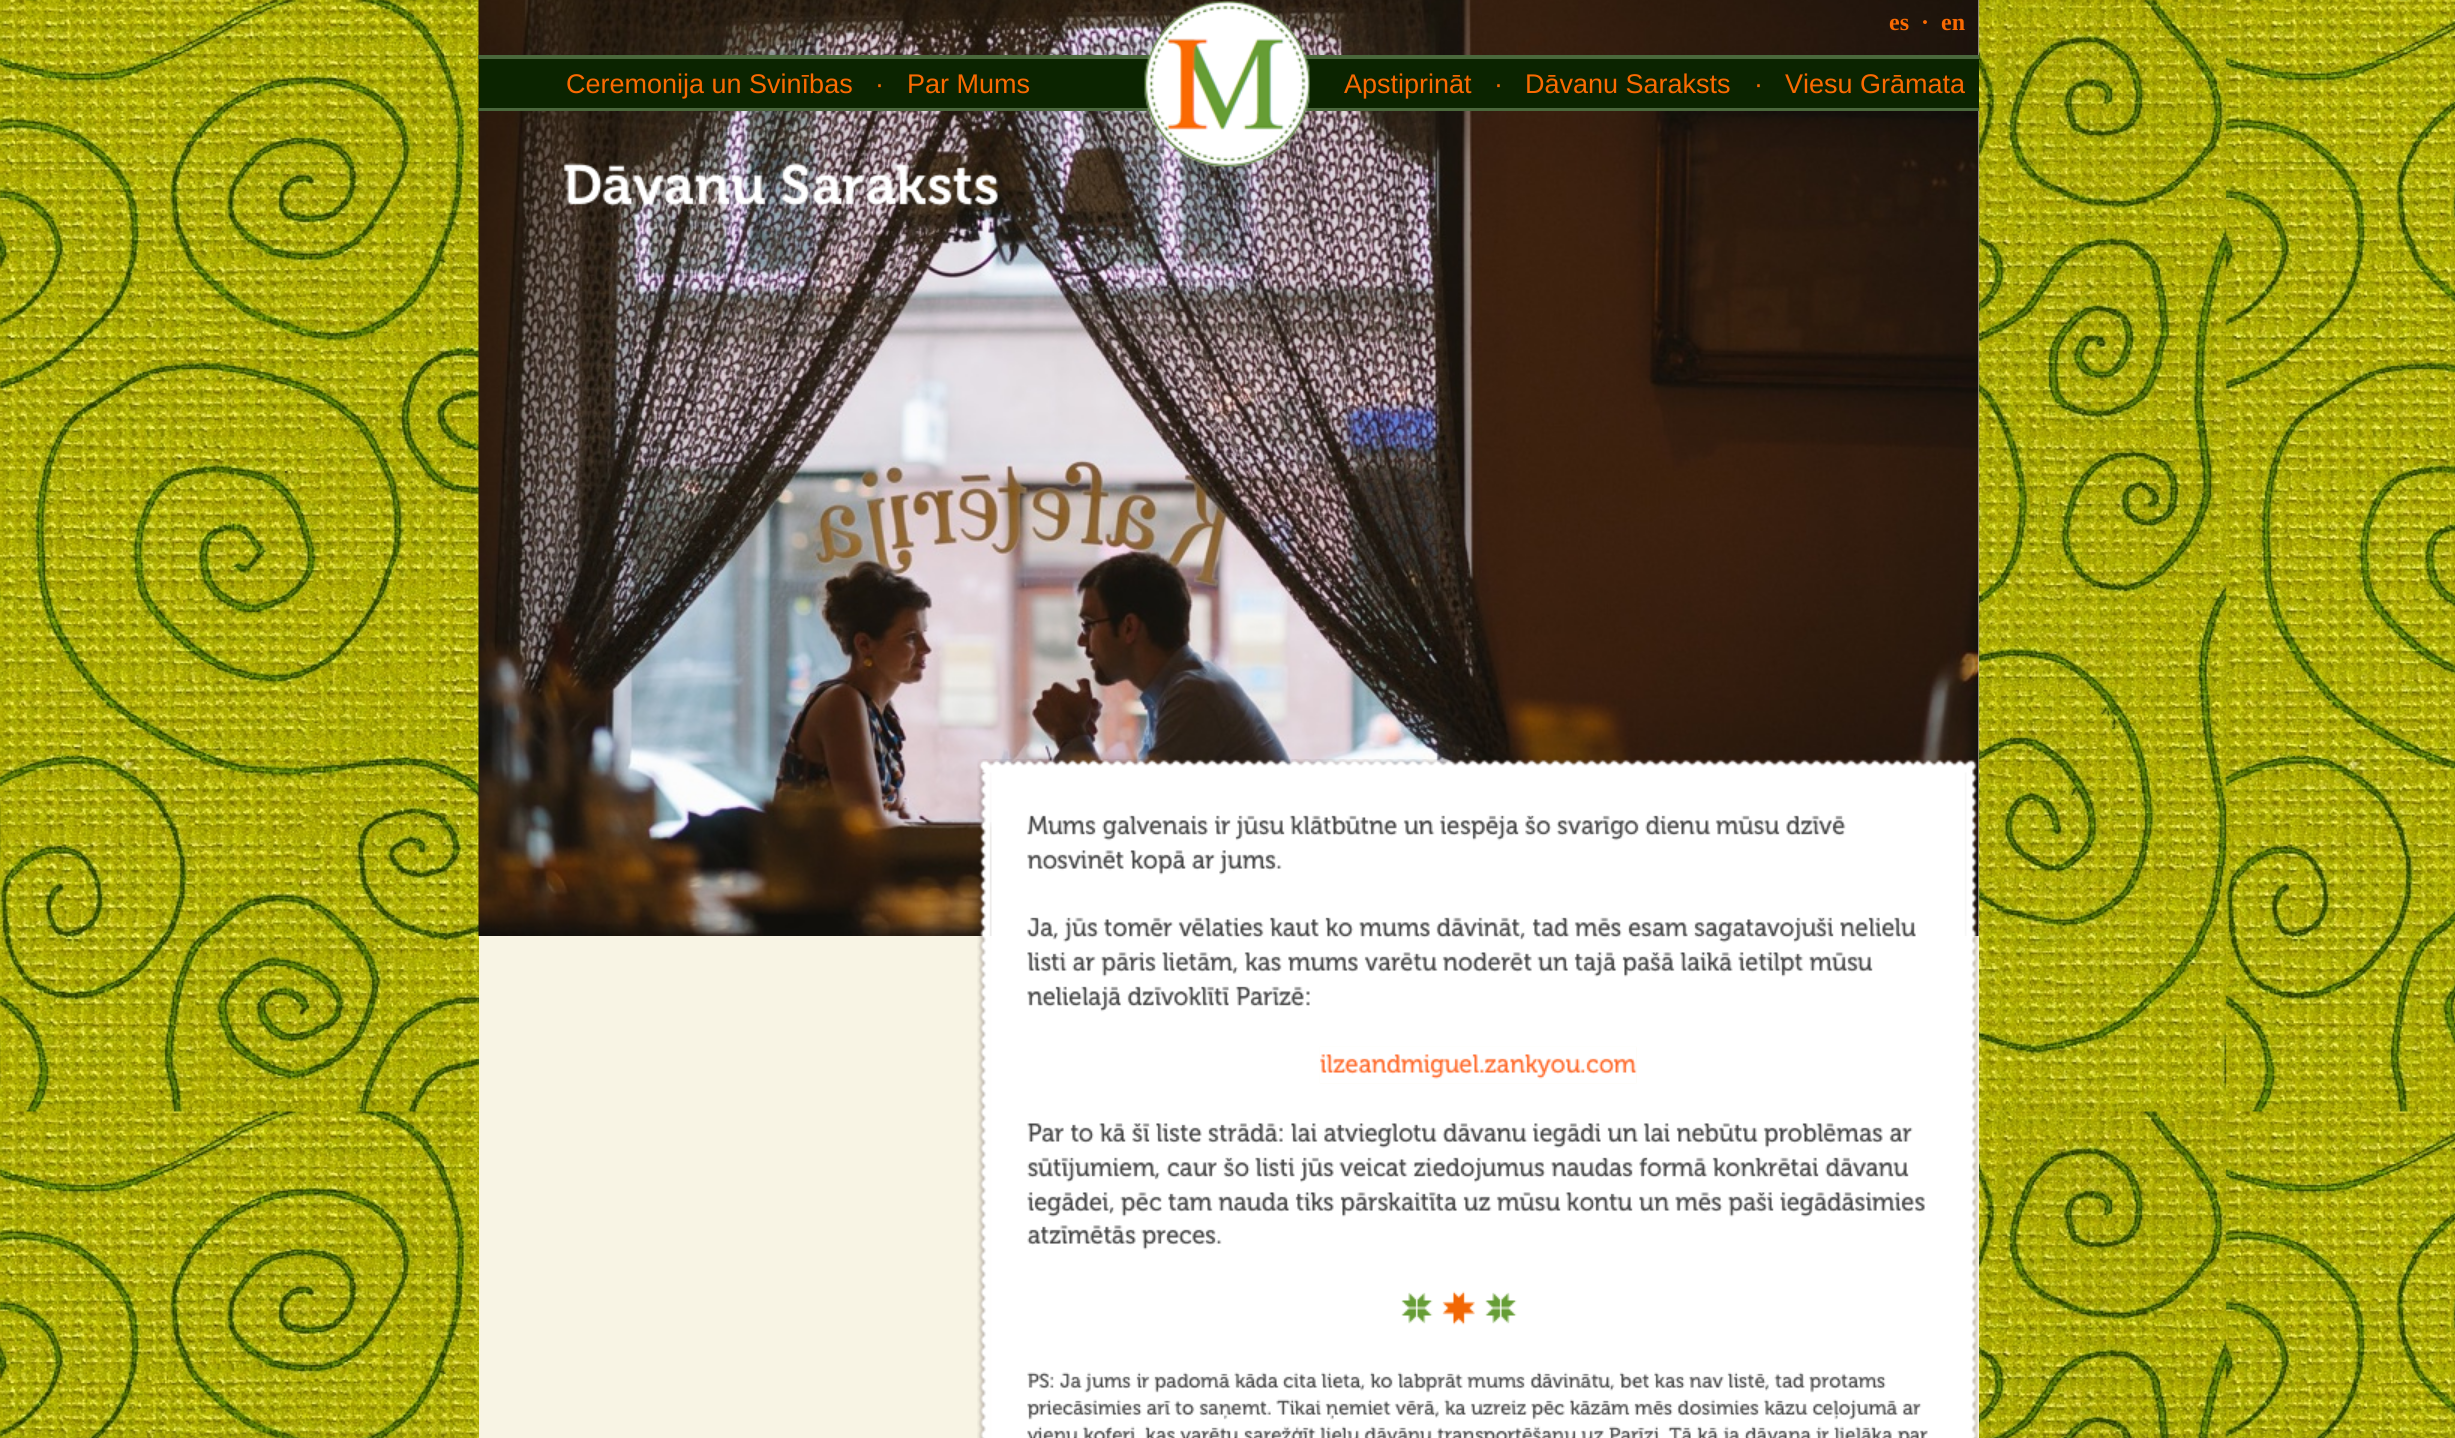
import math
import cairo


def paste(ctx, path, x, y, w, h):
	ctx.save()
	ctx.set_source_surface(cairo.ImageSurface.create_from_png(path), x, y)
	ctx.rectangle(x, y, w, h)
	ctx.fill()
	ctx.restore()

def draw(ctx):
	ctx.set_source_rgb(1, 1, 1)
	ctx.paint()
	paste(ctx, 'media/1.png', 0, 0, 2455, 1438)
	ctx.set_source_rgb(0.969, 0.957, 0.894)
	ctx.rectangle(479, 0, 1500, 1438)
	ctx.fill()
	paste(ctx, 'media/2.png', 478, 0, 1501, 936)
	ctx.set_source_rgb(0.043, 0.141, 0)
	ctx.rectangle(479, 59, 1500, 49)
	ctx.fill()
	ctx.set_source_rgb(0.29, 0.408, 0.235)
	ctx.rectangle(478, 55, 1501, 4)
	ctx.rectangle(478, 108, 1501, 3)
	ctx.fill()
	paste(ctx, 'media/3.png', 1144, 1, 166, 166)
	ctx.select_font_face('Liberation Serif', cairo.FONT_SLANT_NORMAL, cairo.FONT_WEIGHT_BOLD)
	ctx.set_font_size(24)
	ctx.set_source_rgb(0.98, 0.416, 0.008)
	for x, y, s in [
		(1889, 30, 'es'),
		(1921, 30, '·'),
		(1941, 30, 'en'),
	]:
		ctx.move_to(x, y)
		ctx.show_text(s)
	ctx.select_font_face('Liberation Sans')
	ctx.set_font_size(27)
	for x, y, s in [
		(566, 93, 'Ceremonija un Svinības'),
		(875, 93, '·'),
		(907, 93, 'Par Mums'),
		(1344, 93, 'Apstiprināt'),
		(1494, 93, '·'),
		(1525, 93, 'Dāvanu Saraksts'),
		(1754, 93, '·'),
		(1785, 93, 'Viesu Grāmata'),
	]:
		ctx.move_to(x, y)
		ctx.show_text(s)
	paste(ctx, 'media/4.png', 563, 163, 437, 45)
	paste(ctx, 'media/6.png', 1320, 1047, 317, 36)
	paste(ctx, 'media/5.png', 977, 759, 1001, 679)
	paste(ctx, 'media/7.png', 1401, 1291, 116, 34)


surface = cairo.ImageSurface(cairo.FORMAT_RGB24, 2455, 1438)
ctx = cairo.Context(surface)
options = cairo.FontOptions()
options.set_hint_metrics(cairo.HINT_METRICS_OFF)
options.set_hint_style(cairo.HINT_STYLE_NONE)
ctx.set_font_options(options)
ctx.set_miter_limit(4)
draw(ctx)
surface.write_to_png('image.png')
